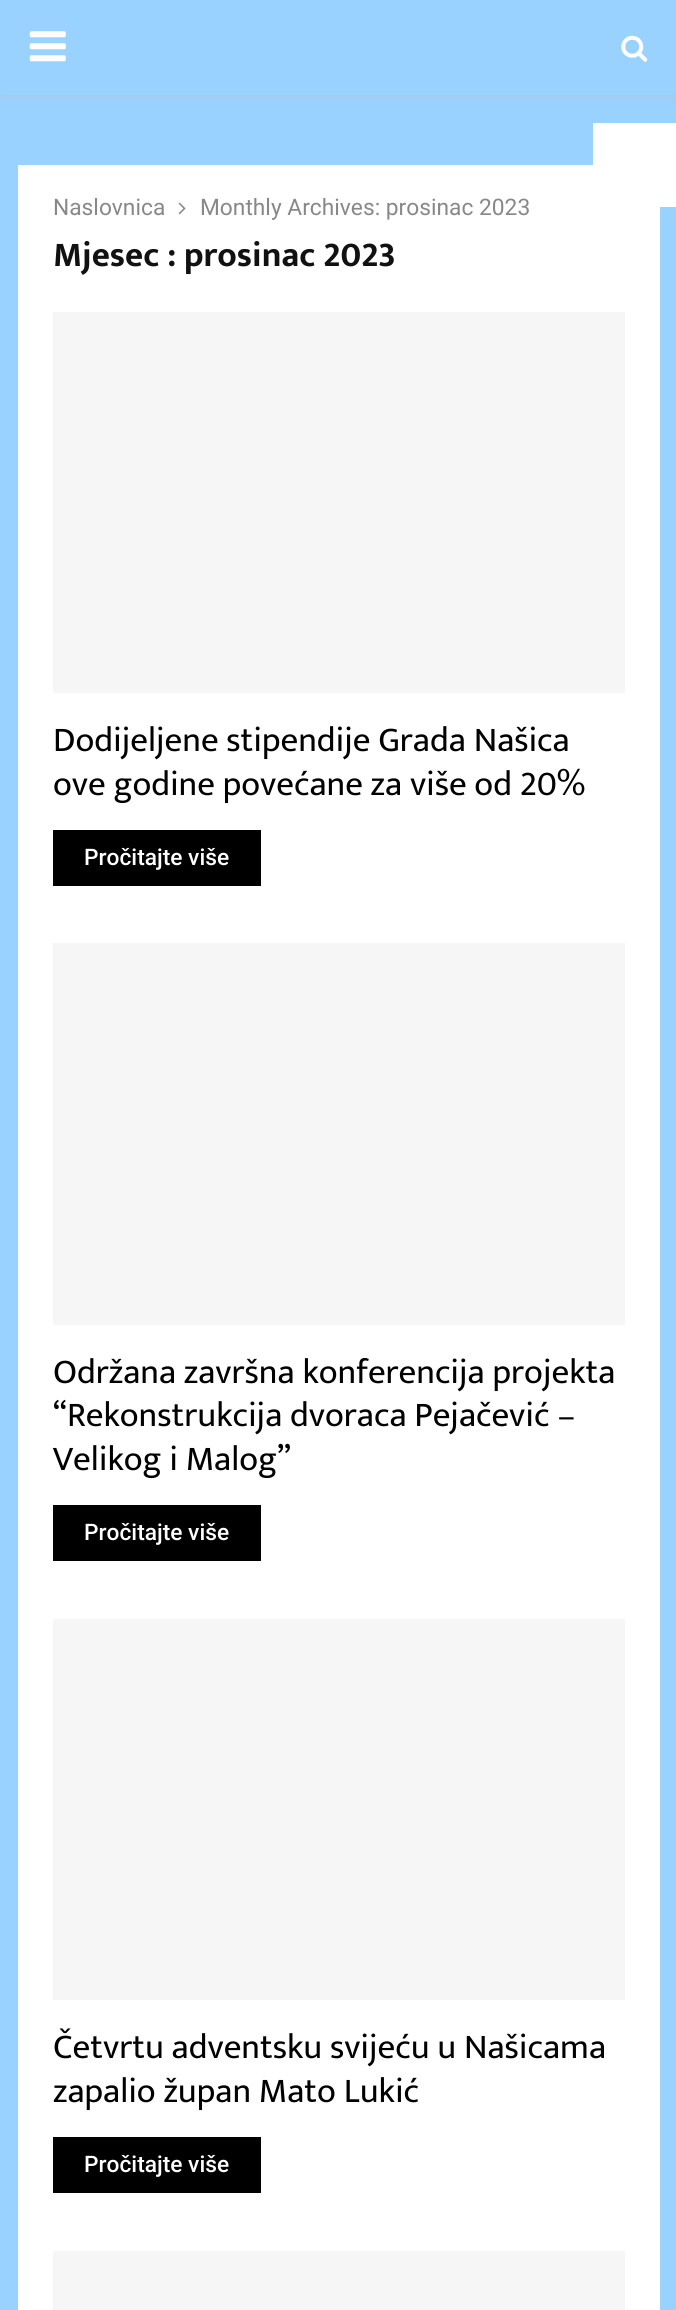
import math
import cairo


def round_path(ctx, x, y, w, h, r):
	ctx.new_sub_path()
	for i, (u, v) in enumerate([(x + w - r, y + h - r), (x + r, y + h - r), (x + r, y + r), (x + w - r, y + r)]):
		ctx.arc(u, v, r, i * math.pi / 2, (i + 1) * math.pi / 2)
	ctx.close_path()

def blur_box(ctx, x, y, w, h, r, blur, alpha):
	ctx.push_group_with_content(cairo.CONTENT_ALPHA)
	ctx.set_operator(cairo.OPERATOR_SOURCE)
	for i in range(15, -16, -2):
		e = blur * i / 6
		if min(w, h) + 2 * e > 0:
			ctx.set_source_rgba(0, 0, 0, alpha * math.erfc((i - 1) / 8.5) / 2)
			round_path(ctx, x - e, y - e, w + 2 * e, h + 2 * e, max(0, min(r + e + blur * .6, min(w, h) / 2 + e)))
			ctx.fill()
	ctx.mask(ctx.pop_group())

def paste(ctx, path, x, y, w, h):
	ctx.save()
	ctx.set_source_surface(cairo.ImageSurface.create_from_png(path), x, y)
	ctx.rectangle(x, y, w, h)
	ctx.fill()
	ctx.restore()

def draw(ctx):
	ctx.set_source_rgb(0.6, 0.824, 1)
	ctx.paint()
	ctx.set_source_rgb(1, 1, 1)
	ctx.rectangle(18, 165, 642, 2145)
	ctx.fill()
	ctx.rectangle(593, 123, 83, 84)
	ctx.fill()
	ctx.set_source_rgb(0.745, 0.745, 0.745)
	blur_box(ctx, 0, 2, 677, 94, 0, 4.5, 0.46)
	ctx.set_source_rgb(0.6, 0.824, 1)
	ctx.rectangle(0, 0, 676, 95)
	ctx.fill()
	paste(ctx, 'media/1.png', 29, 31, 37, 31)
	paste(ctx, 'media/2.png', 621, 35, 27, 27)
	ctx.select_font_face('Roboto')
	ctx.set_font_size(22.75)
	ctx.set_source_rgb(0.533, 0.533, 0.533)
	ctx.move_to(53, 215)
	ctx.show_text('Naslovnica')
	paste(ctx, 'media/3.png', 178, 202, 8, 13)
	ctx.move_to(200, 215)
	ctx.show_text('Monthly Archives: prosinac 2023')
	ctx.select_font_face('Mukta Vaani', cairo.FONT_SLANT_NORMAL, cairo.FONT_WEIGHT_BOLD)
	ctx.set_font_size(35)
	ctx.set_source_rgb(0.067, 0.067, 0.067)
	ctx.move_to(53, 266)
	ctx.show_text('Mjesec : prosinac 2023')
	ctx.set_source_rgb(0.961, 0.961, 0.961)
	ctx.rectangle(53, 312, 572, 381)
	ctx.fill()
	ctx.select_font_face('Mukta Vaani')
	ctx.set_source_rgb(0, 0, 0)
	ctx.move_to(53, 751)
	ctx.show_text('Dodijeljene stipendije Grada Našica')
	ctx.move_to(53, 795)
	ctx.show_text('ove godine povećane za više od 20%')
	ctx.rectangle(53, 830, 208, 56)
	ctx.fill()
	ctx.select_font_face('Roboto Medium')
	ctx.set_font_size(22.75)
	ctx.set_source_rgb(1, 1, 1)
	ctx.move_to(84, 865)
	ctx.show_text('Pročitajte više')
	ctx.set_source_rgb(0.961, 0.961, 0.961)
	ctx.rectangle(53, 943, 572, 382)
	ctx.fill()
	ctx.select_font_face('Mukta Vaani')
	ctx.set_font_size(35)
	ctx.set_source_rgb(0, 0, 0)
	for x, y, s in [
		(53, 1383, 'Održana završna konferencija projekta'),
		(53, 1426, '“Rekonstrukcija dvoraca Pejačević –'),
		(53, 1470, 'Velikog i Malog”'),
	]:
		ctx.move_to(x, y)
		ctx.show_text(s)
	ctx.rectangle(53, 1505, 208, 56)
	ctx.fill()
	ctx.select_font_face('Roboto Medium')
	ctx.set_font_size(22.75)
	ctx.set_source_rgb(1, 1, 1)
	ctx.move_to(84, 1540)
	ctx.show_text('Pročitajte više')
	ctx.set_source_rgb(0.961, 0.961, 0.961)
	ctx.rectangle(53, 1619, 572, 381)
	ctx.fill()
	ctx.select_font_face('Mukta Vaani')
	ctx.set_font_size(35)
	ctx.set_source_rgb(0, 0, 0)
	ctx.move_to(53, 2058)
	ctx.show_text('Četvrtu adventsku svijeću u Našicama')
	ctx.move_to(53, 2102)
	ctx.show_text('zapalio župan Mato Lukić')
	ctx.rectangle(53, 2137, 208, 56)
	ctx.fill()
	ctx.select_font_face('Roboto Medium')
	ctx.set_font_size(22.75)
	ctx.set_source_rgb(1, 1, 1)
	ctx.move_to(84, 2172)
	ctx.show_text('Pročitajte više')
	ctx.set_source_rgb(0.961, 0.961, 0.961)
	ctx.rectangle(53, 2251, 572, 59)
	ctx.fill()


surface = cairo.ImageSurface(cairo.FORMAT_RGB24, 676, 2310)
ctx = cairo.Context(surface)
options = cairo.FontOptions()
options.set_hint_metrics(cairo.HINT_METRICS_OFF)
options.set_hint_style(cairo.HINT_STYLE_NONE)
ctx.set_font_options(options)
ctx.set_miter_limit(4)
draw(ctx)
surface.write_to_png('image.png')
